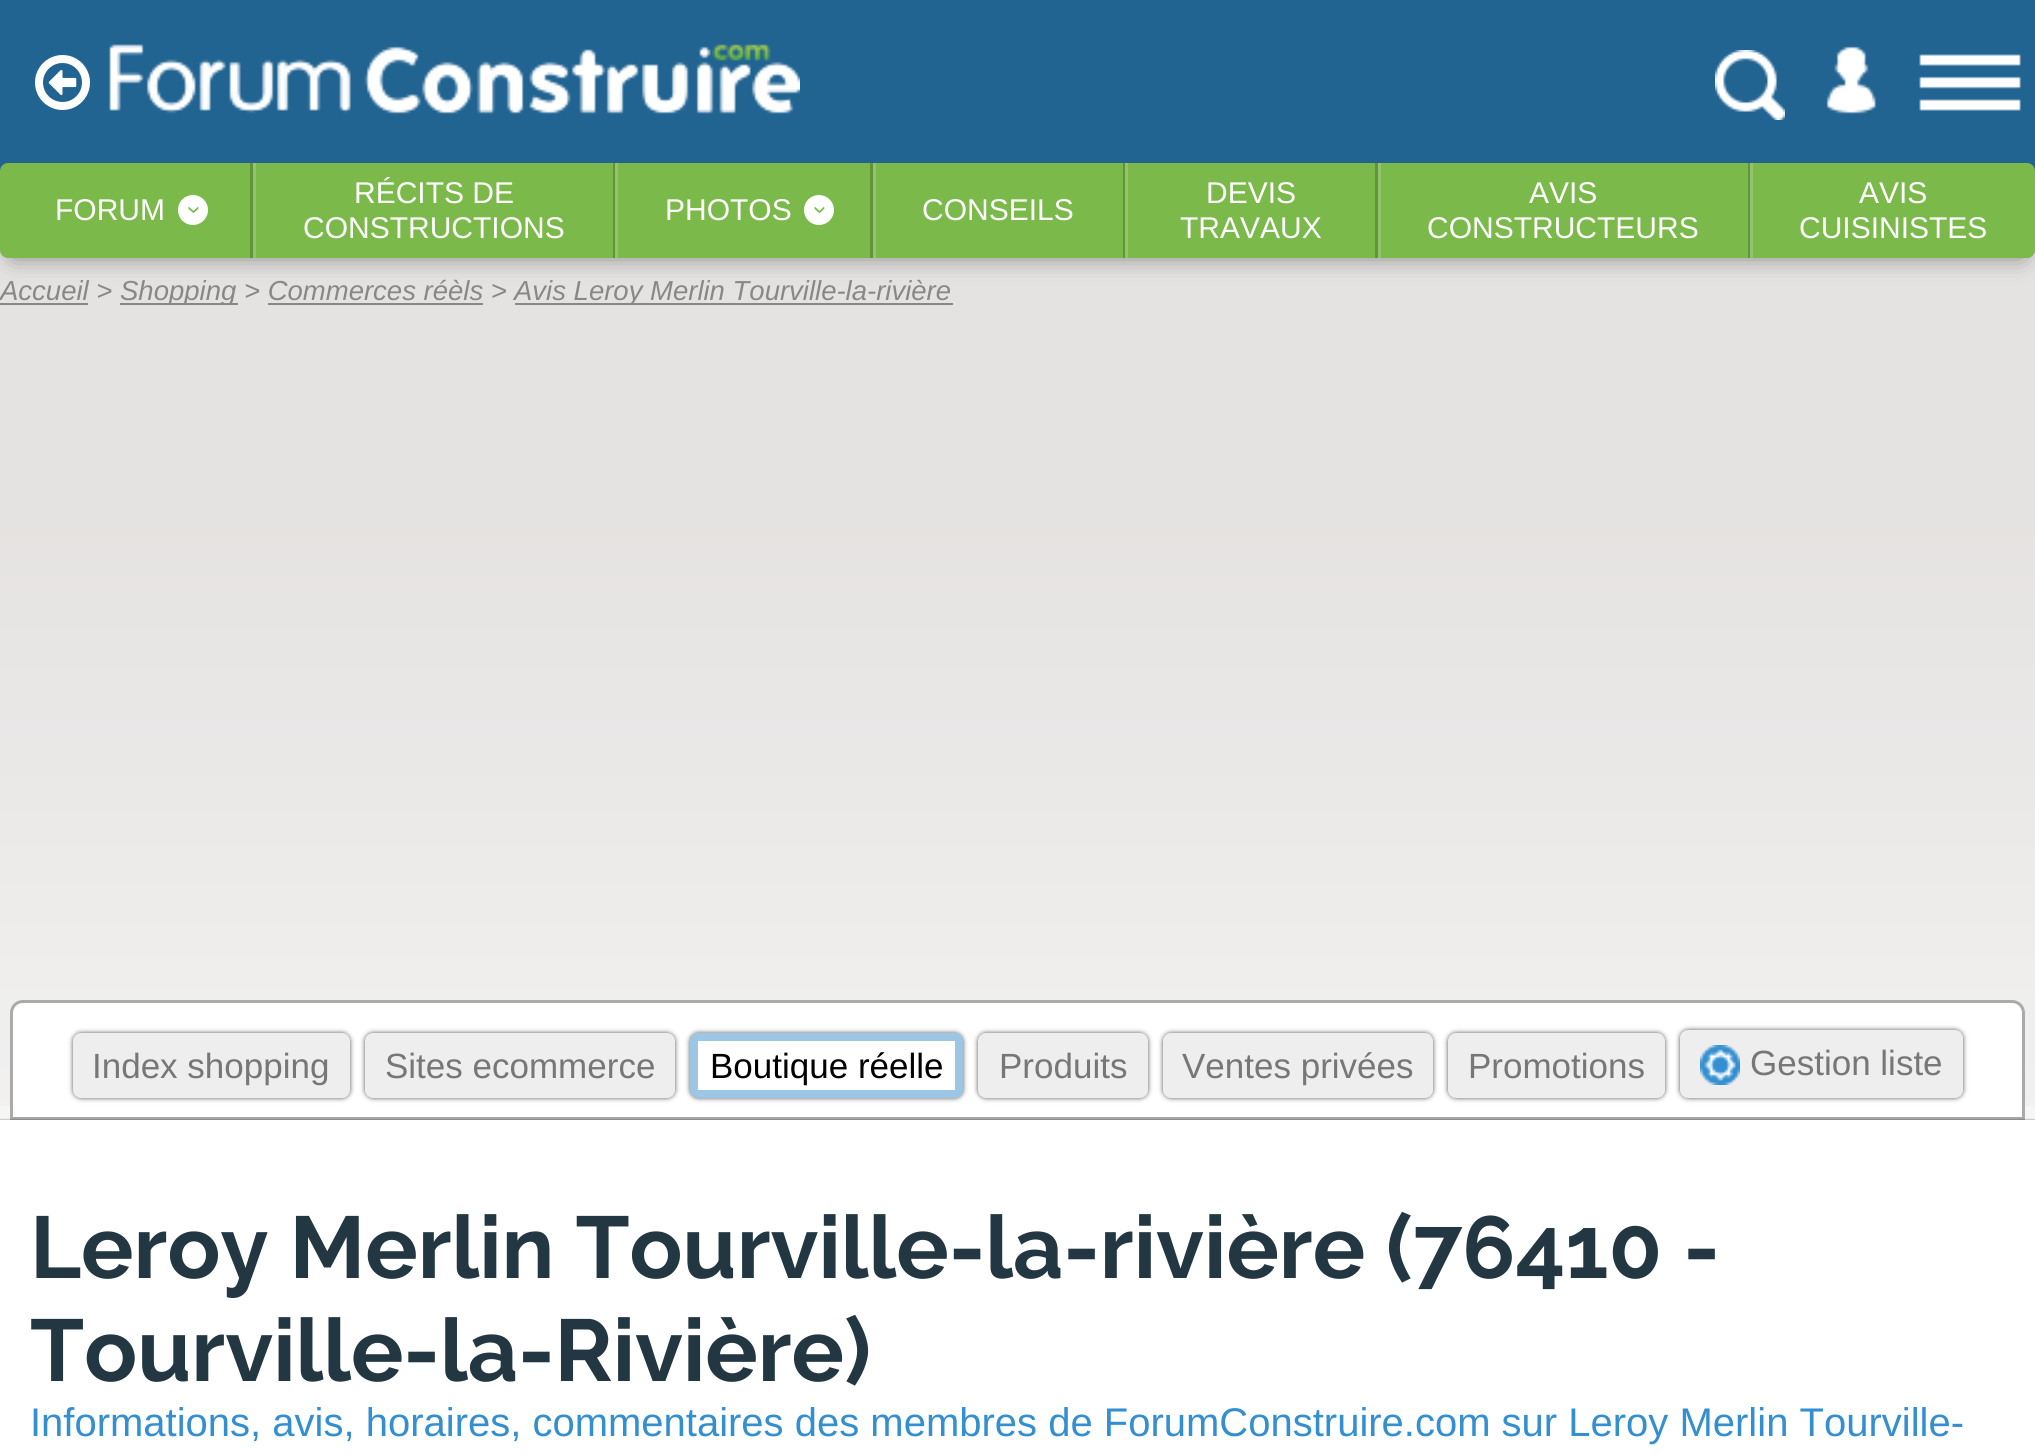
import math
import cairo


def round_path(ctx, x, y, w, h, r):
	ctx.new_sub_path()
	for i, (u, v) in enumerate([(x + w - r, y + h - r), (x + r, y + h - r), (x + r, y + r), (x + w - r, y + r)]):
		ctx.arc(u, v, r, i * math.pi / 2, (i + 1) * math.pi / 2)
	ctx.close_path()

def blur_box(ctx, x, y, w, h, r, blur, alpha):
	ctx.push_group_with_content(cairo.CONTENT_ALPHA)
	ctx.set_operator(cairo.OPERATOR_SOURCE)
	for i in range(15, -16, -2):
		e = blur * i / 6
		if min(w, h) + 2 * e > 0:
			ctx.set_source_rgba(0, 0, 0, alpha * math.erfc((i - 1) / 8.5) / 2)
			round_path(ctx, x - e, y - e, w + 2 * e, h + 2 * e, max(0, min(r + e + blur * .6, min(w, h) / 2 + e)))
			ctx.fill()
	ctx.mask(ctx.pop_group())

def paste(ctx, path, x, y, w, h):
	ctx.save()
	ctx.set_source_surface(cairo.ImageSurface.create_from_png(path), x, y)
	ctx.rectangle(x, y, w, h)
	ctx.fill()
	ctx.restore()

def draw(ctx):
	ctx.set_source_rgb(0.961, 0.961, 0.957)
	ctx.paint()
	paste(ctx, 'media/1.png', 0, 250, 2035, 856)
	ctx.set_source_rgb(0.129, 0.388, 0.569)
	ctx.rectangle(0, 163, 2035, 8)
	ctx.fill()
	ctx.set_source_rgb(0, 0, 0)
	blur_box(ctx, 13, 185, 2010, 70, 0, 12.5, 0.5)
	ctx.set_source_rgb(0.129, 0.388, 0.569)
	ctx.rectangle(0, 0, 2035, 163)
	ctx.fill()
	paste(ctx, 'media/2.png', 35, 55, 55, 55)
	paste(ctx, 'media/3.png', 109, 44, 691, 70)
	paste(ctx, 'media/4.png', 1715, 50, 70, 70)
	paste(ctx, 'media/5.png', 1826, 46, 50, 68)
	paste(ctx, 'media/6.png', 1919, 54, 102, 57)
	ctx.set_source_rgb(0.478, 0.725, 0.29)
	round_path(ctx, 0, 163, 2035, 95, 8)
	ctx.fill()
	ctx.set_source_rgb(0.384, 0.58, 0.231)
	ctx.rectangle(250, 163, 3, 95)
	ctx.fill()
	ctx.select_font_face('Liberation Sans')
	ctx.set_font_size(30)
	ctx.set_source_rgb(1, 1, 1)
	ctx.move_to(55, 220)
	ctx.show_text('FORUM')
	ctx.new_path()
	ctx.move_to(178, 210)
	ctx.curve_to(178, 201.5, 184.5, 195, 193, 195)
	ctx.curve_to(201, 195, 208, 201.5, 208, 210)
	ctx.curve_to(208, 218.5, 201, 225, 193, 225)
	ctx.curve_to(184.5, 225, 178, 218.5, 178, 210)
	ctx.close_path()
	ctx.fill()
	ctx.set_font_size(25)
	ctx.set_source_rgb(0.478, 0.725, 0.29)
	ctx.save()
	ctx.translate(200, 214)
	ctx.rotate(-90 * math.pi / 180)
	ctx.move_to(0, 0)
	ctx.show_text('‹')
	ctx.restore()
	ctx.set_source_rgb(0.384, 0.58, 0.231)
	ctx.rectangle(613, 163, 2, 95)
	ctx.fill()
	ctx.set_source_rgb(0.569, 0.769, 0.42)
	ctx.rectangle(253, 163, 3, 95)
	ctx.fill()
	ctx.set_font_size(30)
	ctx.set_source_rgb(1, 1, 1)
	ctx.move_to(354, 203)
	ctx.show_text('RÉCITS DE')
	ctx.move_to(303, 238)
	ctx.show_text('CONSTRUCTIONS')
	ctx.set_source_rgb(0.384, 0.58, 0.231)
	ctx.rectangle(870, 163, 3, 95)
	ctx.fill()
	ctx.set_source_rgb(0.569, 0.769, 0.42)
	ctx.rectangle(615, 163, 3, 95)
	ctx.fill()
	ctx.set_source_rgb(1, 1, 1)
	ctx.move_to(665, 220)
	ctx.show_text('PHOTOS')
	ctx.new_path()
	ctx.move_to(804, 210)
	ctx.curve_to(804, 201.5, 810.5, 195, 819, 195)
	ctx.curve_to(827, 195, 834, 201.5, 834, 210)
	ctx.curve_to(834, 218.5, 827, 225, 819, 225)
	ctx.curve_to(810.5, 225, 804, 218.5, 804, 210)
	ctx.close_path()
	ctx.fill()
	ctx.set_font_size(25)
	ctx.set_source_rgb(0.478, 0.725, 0.29)
	ctx.save()
	ctx.translate(826, 214)
	ctx.rotate(-90 * math.pi / 180)
	ctx.move_to(0, 0)
	ctx.show_text('‹')
	ctx.restore()
	ctx.set_source_rgb(0.384, 0.58, 0.231)
	ctx.rectangle(1123, 163, 2, 95)
	ctx.fill()
	ctx.set_source_rgb(0.569, 0.769, 0.42)
	ctx.rectangle(873, 163, 3, 95)
	ctx.fill()
	ctx.set_font_size(30)
	ctx.set_source_rgb(1, 1, 1)
	ctx.move_to(922, 220)
	ctx.show_text('CONSEILS')
	ctx.set_source_rgb(0.384, 0.58, 0.231)
	ctx.rectangle(1375, 163, 3, 95)
	ctx.fill()
	ctx.set_source_rgb(0.569, 0.769, 0.42)
	ctx.rectangle(1125, 163, 3, 95)
	ctx.fill()
	ctx.set_source_rgb(1, 1, 1)
	ctx.move_to(1206, 203)
	ctx.show_text('DEVIS')
	ctx.move_to(1180, 238)
	ctx.show_text('TRAVAUX')
	ctx.set_source_rgb(0.384, 0.58, 0.231)
	ctx.rectangle(1748, 163, 2, 95)
	ctx.fill()
	ctx.set_source_rgb(0.569, 0.769, 0.42)
	ctx.rectangle(1378, 163, 3, 95)
	ctx.fill()
	ctx.set_source_rgb(1, 1, 1)
	ctx.move_to(1529, 203)
	ctx.show_text('AVIS')
	ctx.move_to(1427, 238)
	ctx.show_text('CONSTRUCTEURS')
	ctx.set_source_rgb(0.569, 0.769, 0.42)
	ctx.rectangle(1750, 163, 3, 95)
	ctx.fill()
	ctx.set_source_rgb(1, 1, 1)
	ctx.move_to(1859, 203)
	ctx.show_text('AVIS')
	ctx.move_to(1799, 238)
	ctx.show_text('CUISINISTES')
	ctx.select_font_face('Liberation Sans', cairo.FONT_SLANT_ITALIC)
	ctx.set_font_size(27.5)
	ctx.set_source_rgb(0.533, 0.533, 0.533)
	ctx.move_to(0, 300)
	ctx.show_text('Accueil >')
	ctx.rectangle(0, 303, 88, 2)
	ctx.fill()
	ctx.rectangle(120, 303, 118, 2)
	ctx.fill()
	ctx.save()
	ctx.rectangle(0, 275, 2035, 30)
	ctx.clip()
	ctx.move_to(120, 300)
	ctx.show_text('Shopping')
	ctx.restore()
	ctx.move_to(244, 300)
	ctx.show_text('> Commerces réèls >')
	ctx.rectangle(268, 303, 215, 2)
	ctx.fill()
	ctx.rectangle(515, 303, 438, 2)
	ctx.fill()
	ctx.save()
	ctx.rectangle(0, 275, 2035, 30)
	ctx.clip()
	ctx.move_to(514, 300)
	ctx.show_text('Avis Leroy Merlin Tourville-la-rivière')
	ctx.restore()
	ctx.set_source_rgb(1, 1, 1)
	ctx.new_path()
	ctx.move_to(23, 1001.5)
	ctx.line_to(2012, 1001.5)
	ctx.curve_to(2018.5, 1001.5, 2023.5, 1006.5, 2023.5, 1013)
	ctx.line_to(2023.5, 1118.5)
	ctx.line_to(11.5, 1118.5)
	ctx.line_to(11.5, 1013)
	ctx.curve_to(11.5, 1006.5, 16.5, 1001.5, 23, 1001.5)
	ctx.close_path()
	ctx.fill_preserve()
	ctx.set_source_rgb(0.667, 0.667, 0.667)
	ctx.set_line_width(3)
	ctx.stroke()
	ctx.set_source_rgb(0.333, 0.333, 0.333)
	blur_box(ctx, 73, 1033, 277, 65, 8, 2.5, 1)
	ctx.set_source_rgb(0.933, 0.933, 0.933)
	round_path(ctx, 77, 1037, 269, 57, 4)
	ctx.fill_preserve()
	ctx.set_line_width(8)
	ctx.stroke()
	ctx.select_font_face('Liberation Sans')
	ctx.set_font_size(35)
	ctx.set_source_rgb(0.467, 0.467, 0.467)
	ctx.move_to(92, 1078)
	ctx.show_text('Index shopping')
	ctx.set_source_rgb(0.333, 0.333, 0.333)
	blur_box(ctx, 365, 1033, 310, 65, 8, 2.5, 1)
	ctx.set_source_rgb(0.933, 0.933, 0.933)
	round_path(ctx, 369, 1037, 302, 57, 4)
	ctx.fill_preserve()
	ctx.stroke()
	ctx.set_source_rgb(0.467, 0.467, 0.467)
	ctx.move_to(385, 1078)
	ctx.show_text('Sites ecommerce')
	ctx.set_source_rgb(0.333, 0.333, 0.333)
	blur_box(ctx, 690, 1033, 273, 65, 8, 2.5, 1)
	ctx.set_source_rgb(1, 1, 1)
	round_path(ctx, 694, 1037, 265, 57, 4)
	ctx.fill_preserve()
	ctx.set_source_rgb(0.612, 0.776, 0.89)
	ctx.stroke()
	ctx.set_source_rgb(0, 0, 0)
	ctx.move_to(710, 1078)
	ctx.show_text('Boutique réelle')
	ctx.set_source_rgb(0.333, 0.333, 0.333)
	blur_box(ctx, 978, 1033, 170, 65, 8, 2.5, 1)
	ctx.set_source_rgb(0.933, 0.933, 0.933)
	round_path(ctx, 982, 1037, 162, 57, 4)
	ctx.fill_preserve()
	ctx.stroke()
	ctx.set_source_rgb(0.467, 0.467, 0.467)
	ctx.move_to(999, 1078)
	ctx.show_text('Produits')
	ctx.set_source_rgb(0.333, 0.333, 0.333)
	blur_box(ctx, 1163, 1033, 270, 65, 8, 2.5, 1)
	ctx.set_source_rgb(0.933, 0.933, 0.933)
	round_path(ctx, 1167, 1037, 262, 57, 4)
	ctx.fill_preserve()
	ctx.stroke()
	ctx.set_source_rgb(0.467, 0.467, 0.467)
	ctx.move_to(1182, 1078)
	ctx.show_text('Ventes privées')
	ctx.set_source_rgb(0.333, 0.333, 0.333)
	blur_box(ctx, 1448, 1033, 217, 65, 8, 2.5, 1)
	ctx.set_source_rgb(0.933, 0.933, 0.933)
	round_path(ctx, 1452, 1037, 209, 57, 4)
	ctx.fill_preserve()
	ctx.stroke()
	ctx.set_source_rgb(0.467, 0.467, 0.467)
	ctx.move_to(1468, 1078)
	ctx.show_text('Promotions')
	ctx.set_source_rgb(0.333, 0.333, 0.333)
	blur_box(ctx, 1680, 1030, 283, 68, 8, 2.5, 1)
	ctx.set_source_rgb(0.933, 0.933, 0.933)
	round_path(ctx, 1684, 1034, 275, 60, 4)
	ctx.fill_preserve()
	ctx.stroke()
	paste(ctx, 'media/7.png', 1700, 1045, 40, 40)
	ctx.set_source_rgb(0.467, 0.467, 0.467)
	ctx.move_to(1750, 1075)
	ctx.show_text('Gestion liste')
	ctx.set_source_rgb(0, 0, 0)
	blur_box(ctx, 0, 1120, 2035, 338, 0, 1, 0.5)
	ctx.set_source_rgb(1, 1, 1)
	ctx.rectangle(0, 1120, 2035, 335)
	ctx.fill()
	ctx.select_font_face('Raleway', cairo.FONT_SLANT_NORMAL, cairo.FONT_WEIGHT_BOLD)
	ctx.set_font_size(87.5)
	ctx.set_source_rgb(0.137, 0.216, 0.263)
	ctx.move_to(30, 1278)
	ctx.show_text('Leroy Merlin Tourville-la-rivière (76410 -')
	ctx.move_to(30, 1381)
	ctx.show_text('Tourville-la-Rivière)')
	ctx.select_font_face('Liberation Sans')
	ctx.set_font_size(40)
	ctx.set_source_rgb(0.204, 0.561, 0.82)
	ctx.move_to(30, 1436)
	ctx.show_text('Informations, avis, horaires, commentaires des membres de ForumConstruire.com sur Leroy Merlin Tourville-')


surface = cairo.ImageSurface(cairo.FORMAT_RGB24, 2035, 1455)
ctx = cairo.Context(surface)
options = cairo.FontOptions()
options.set_hint_metrics(cairo.HINT_METRICS_OFF)
options.set_hint_style(cairo.HINT_STYLE_NONE)
ctx.set_font_options(options)
ctx.set_miter_limit(4)
draw(ctx)
surface.write_to_png('image.png')
